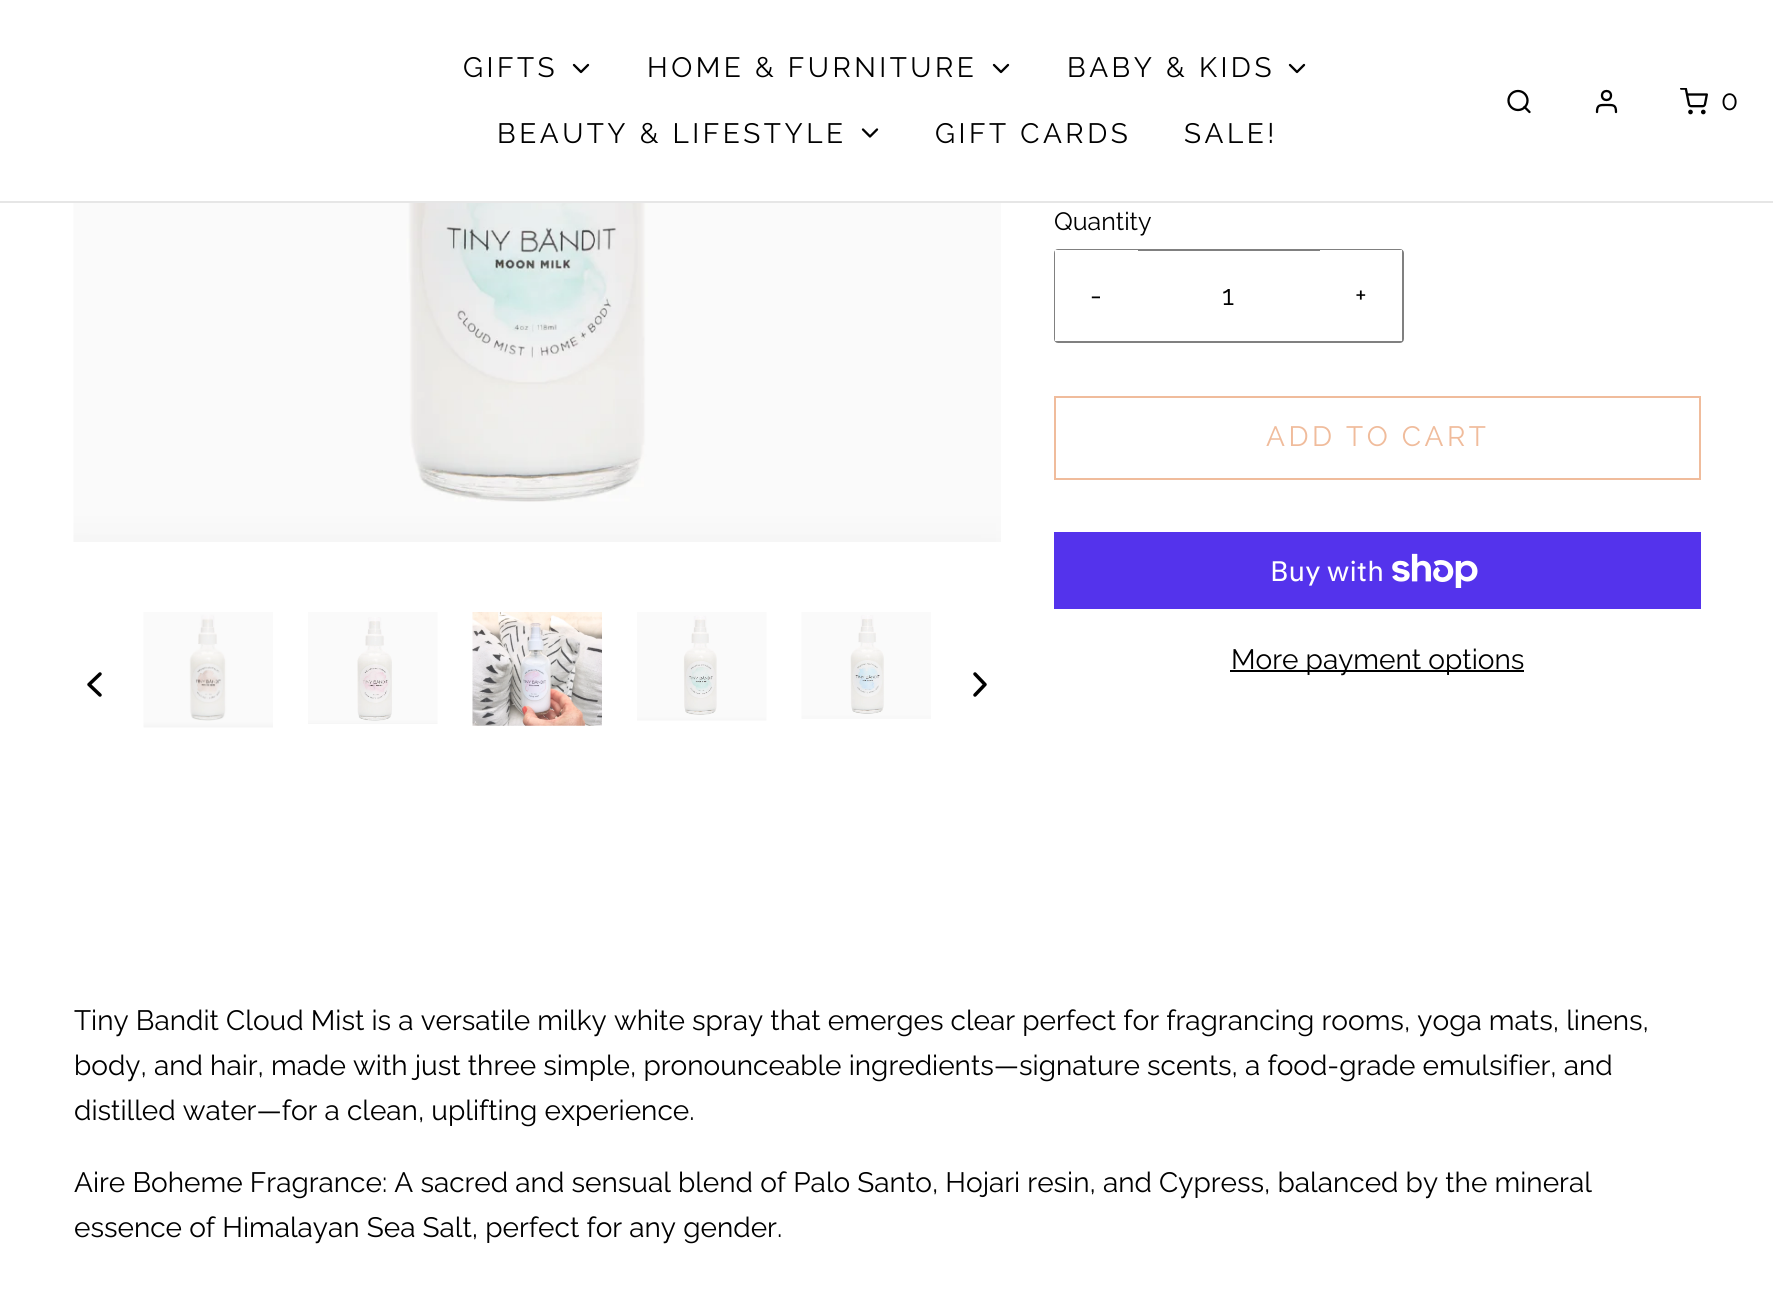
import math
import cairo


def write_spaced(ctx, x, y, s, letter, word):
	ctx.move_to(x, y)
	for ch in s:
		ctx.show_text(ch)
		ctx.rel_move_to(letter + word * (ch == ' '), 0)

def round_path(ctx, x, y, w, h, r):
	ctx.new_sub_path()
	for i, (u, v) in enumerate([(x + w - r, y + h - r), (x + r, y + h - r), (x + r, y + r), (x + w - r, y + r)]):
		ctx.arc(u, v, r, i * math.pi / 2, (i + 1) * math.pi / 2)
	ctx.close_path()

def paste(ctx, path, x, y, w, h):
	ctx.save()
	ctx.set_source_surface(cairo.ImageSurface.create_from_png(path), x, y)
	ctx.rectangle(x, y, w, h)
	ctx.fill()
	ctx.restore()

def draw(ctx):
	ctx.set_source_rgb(1, 1, 1)
	ctx.paint()
	ctx.set_source_rgb(0.902, 0.902, 0.902)
	ctx.rectangle(0, 201, 1773, 2)
	ctx.fill()
	ctx.select_font_face('Raleway')
	ctx.set_font_size(28)
	ctx.set_source_rgb(0, 0, 0)
	write_spaced(ctx, 463, 77, 'GIFTS', 3.5, 0)
	ctx.new_path()
	ctx.move_to(574, 65)
	ctx.line_to(581, 72)
	ctx.line_to(588, 65)
	ctx.set_line_width(2.3)
	ctx.set_line_cap(cairo.LINE_CAP_ROUND)
	ctx.set_line_join(cairo.LINE_JOIN_ROUND)
	ctx.stroke()
	write_spaced(ctx, 647, 77, 'HOME & FURNITURE', 3.5, 0)
	ctx.new_path()
	ctx.move_to(994, 65)
	ctx.line_to(1001, 72)
	ctx.line_to(1008, 65)
	ctx.stroke()
	write_spaced(ctx, 1067, 77, 'BABY & KIDS', 3.5, 0)
	ctx.new_path()
	ctx.move_to(1290, 65)
	ctx.line_to(1297, 72)
	ctx.line_to(1304, 65)
	ctx.stroke()
	write_spaced(ctx, 497, 143, 'BEAUTY & LIFESTYLE', 3.5, 0)
	ctx.new_path()
	ctx.move_to(863, 129.5)
	ctx.line_to(870, 136.5)
	ctx.line_to(877, 129.5)
	ctx.stroke()
	write_spaced(ctx, 935, 143, 'GIFT CARDS', 3.5, 0)
	write_spaced(ctx, 1184, 143, 'SALE!', 3.5, 0)
	ctx.new_path()
	ctx.arc(1518, 100.5, 9.5, 0, 2 * math.pi)
	ctx.set_line_cap(cairo.LINE_CAP_BUTT)
	ctx.set_line_join(cairo.LINE_JOIN_MITER)
	ctx.stroke()
	ctx.new_path()
	ctx.move_to(1529.5, 112)
	ctx.line_to(1524.5, 107)
	ctx.set_line_cap(cairo.LINE_CAP_ROUND)
	ctx.set_line_join(cairo.LINE_JOIN_ROUND)
	ctx.stroke()
	ctx.new_path()
	ctx.move_to(1616, 112)
	ctx.curve_to(1616, 104.5, 1613, 105, 1606.5, 105)
	ctx.curve_to(1600, 105, 1597, 104.5, 1597, 112)
	ctx.stroke()
	ctx.arc(1606.5, 95.5, 4.5, 0, 2 * math.pi)
	ctx.set_line_cap(cairo.LINE_CAP_BUTT)
	ctx.set_line_join(cairo.LINE_JOIN_MITER)
	ctx.stroke()
	paste(ctx, 'media/1.png', 1680, 88, 28, 27)
	ctx.move_to(1721, 110)
	ctx.show_text('0')
	paste(ctx, 'media/2.png', 73, 203, 928, 339)
	ctx.new_path()
	ctx.move_to(100, 695)
	ctx.line_to(89, 684.5)
	ctx.line_to(100, 674)
	ctx.set_line_width(3.5)
	ctx.set_line_cap(cairo.LINE_CAP_ROUND)
	ctx.set_line_join(cairo.LINE_JOIN_ROUND)
	ctx.stroke()
	paste(ctx, 'media/3.png', 143, 612, 130, 116)
	paste(ctx, 'media/4.png', 308, 612, 130, 112)
	paste(ctx, 'media/5.png', 472, 612, 130, 114)
	paste(ctx, 'media/6.png', 637, 612, 130, 109)
	paste(ctx, 'media/7.png', 801, 612, 130, 107)
	ctx.new_path()
	ctx.move_to(975, 695)
	ctx.line_to(985, 684.5)
	ctx.line_to(975, 674)
	ctx.stroke()
	ctx.set_font_size(25)
	ctx.move_to(1054, 230)
	ctx.show_text('Quantity')
	round_path(ctx, 1055, 250, 348, 92, 3)
	ctx.set_source_rgb(0.502, 0.502, 0.502)
	ctx.set_line_width(2)
	ctx.set_line_cap(cairo.LINE_CAP_BUTT)
	ctx.set_line_join(cairo.LINE_JOIN_MITER)
	ctx.stroke()
	ctx.set_source_rgb(1, 1, 1)
	ctx.rectangle(1055, 250, 83, 91)
	ctx.fill()
	ctx.set_font_size(28)
	ctx.set_source_rgb(0, 0, 0)
	ctx.move_to(1090, 305)
	ctx.show_text('-')
	ctx.move_to(1222, 305)
	ctx.show_text('1')
	ctx.set_source_rgb(1, 1, 1)
	ctx.rectangle(1320, 250, 82, 91)
	ctx.fill()
	ctx.set_source_rgb(0, 0, 0)
	ctx.move_to(1355, 305)
	ctx.show_text('+')
	ctx.rectangle(1055, 397, 645, 82)
	ctx.set_source_rgb(0.941, 0.737, 0.612)
	ctx.stroke()
	write_spaced(ctx, 1266, 446, 'ADD TO CART', 3.5, 0)
	ctx.set_source_rgb(0.329, 0.2, 0.922)
	ctx.rectangle(1054, 532, 647, 77)
	ctx.fill()
	ctx.select_font_face('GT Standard')
	ctx.set_source_rgb(1, 1, 1)
	ctx.move_to(1270, 581)
	ctx.show_text('Buy with')
	paste(ctx, 'media/8.png', 1392, 553, 86, 35)
	ctx.set_source_rgb(0, 0, 0)
	ctx.rectangle(1230, 670, 294, 2)
	ctx.fill()
	ctx.select_font_face('Raleway')
	for x, y, s in [
		(1231, 669, 'More payment options'),
		(74, 1030, 'Tiny Bandit Cloud Mist is a versatile milky white spray that emerges clear perfect for fragrancing rooms, yoga mats, linens,'),
		(74, 1075, 'body, and hair, made with just three simple, pronounceable ingredients—signature scents, a food-grade emulsifier, and'),
		(74, 1120, 'distilled water—for a clean, uplifting experience.'),
		(74, 1192, 'Aire Boheme Fragrance: A sacred and sensual blend of Palo Santo, Hojari resin, and Cypress, balanced by the mineral'),
		(74, 1237, 'essence of Himalayan Sea Salt, perfect for any gender.'),
	]:
		ctx.move_to(x, y)
		ctx.show_text(s)


surface = cairo.ImageSurface(cairo.FORMAT_RGB24, 1773, 1297)
ctx = cairo.Context(surface)
options = cairo.FontOptions()
options.set_hint_metrics(cairo.HINT_METRICS_OFF)
options.set_hint_style(cairo.HINT_STYLE_NONE)
ctx.set_font_options(options)
ctx.set_miter_limit(4)
draw(ctx)
surface.write_to_png('image.png')
